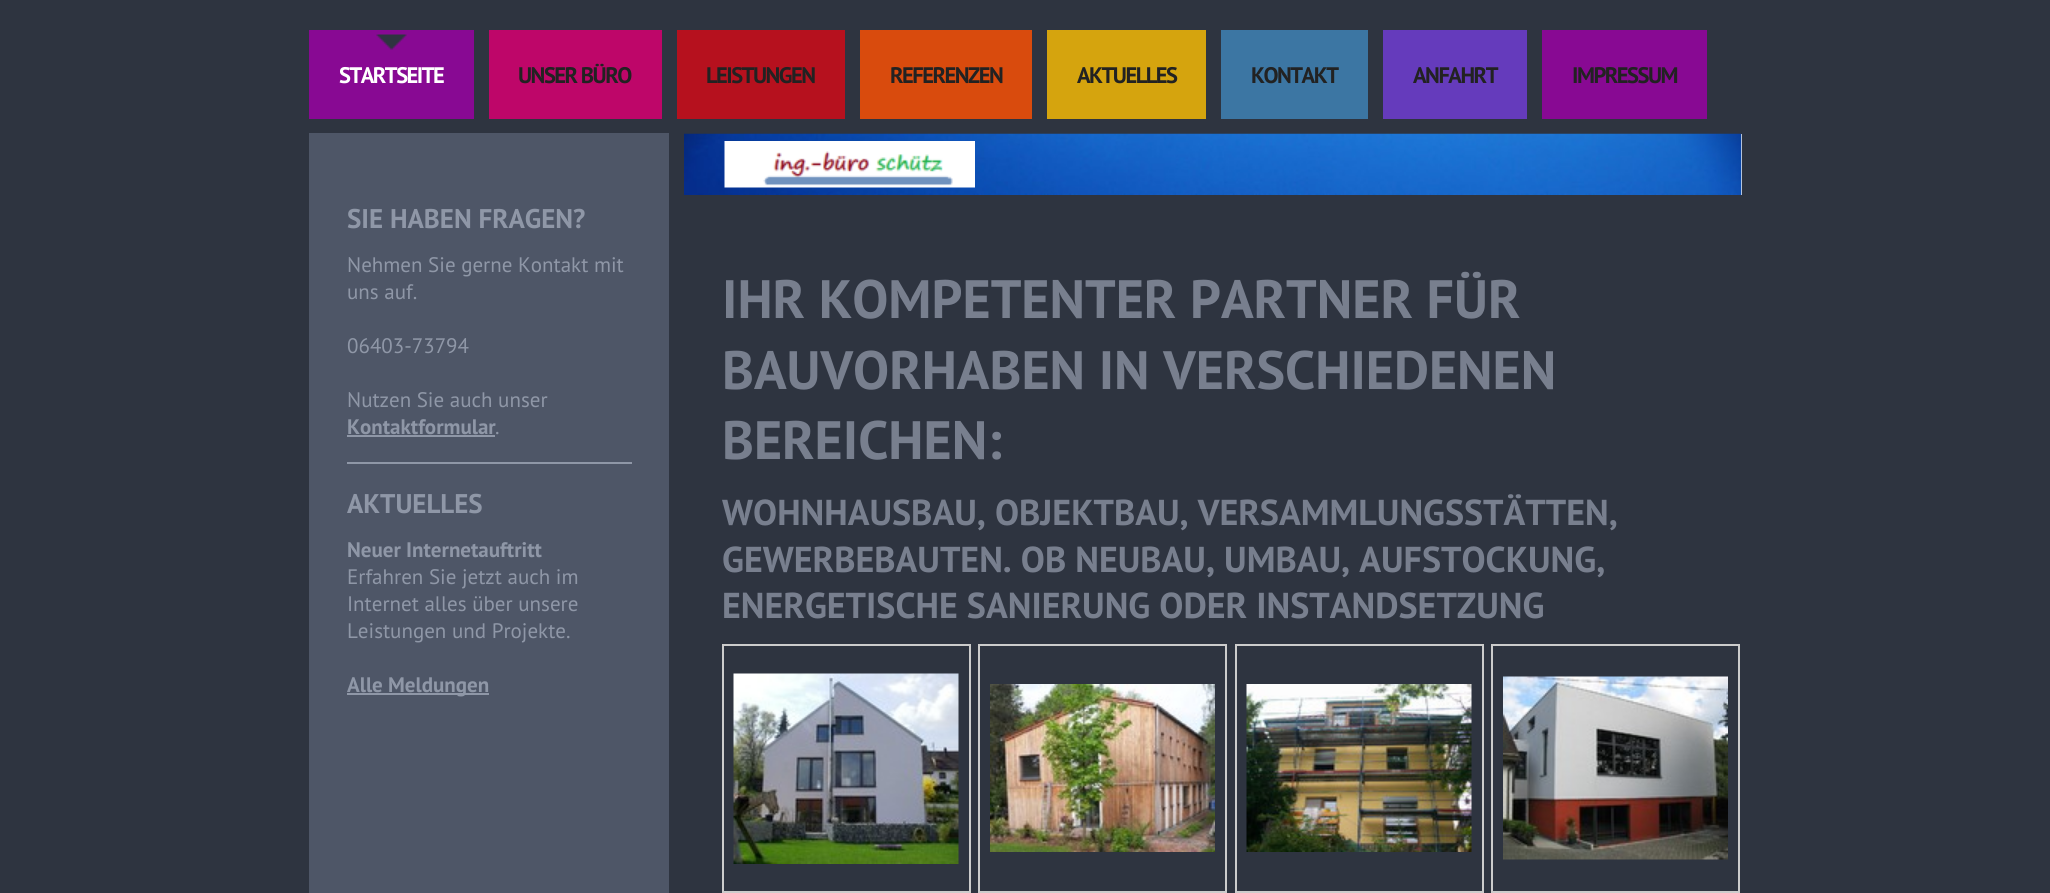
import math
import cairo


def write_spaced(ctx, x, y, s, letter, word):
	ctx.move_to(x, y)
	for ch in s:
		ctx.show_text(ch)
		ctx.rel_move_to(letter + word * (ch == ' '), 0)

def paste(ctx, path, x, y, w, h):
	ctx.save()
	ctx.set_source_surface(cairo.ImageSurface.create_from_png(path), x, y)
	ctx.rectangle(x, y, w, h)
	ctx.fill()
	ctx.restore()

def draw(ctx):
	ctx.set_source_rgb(0.18, 0.204, 0.251)
	ctx.paint()
	ctx.set_source_rgb(0.533, 0.039, 0.576)
	ctx.rectangle(309, 30, 165, 89)
	ctx.fill()
	paste(ctx, 'media/1.png', 376, 34, 31, 16)
	ctx.select_font_face('PT Sans', cairo.FONT_SLANT_NORMAL, cairo.FONT_WEIGHT_BOLD)
	ctx.set_font_size(22.5)
	ctx.set_source_rgb(1, 1, 1)
	write_spaced(ctx, 339, 83, 'STARTSEITE', -1.5, 0)
	ctx.set_source_rgb(0.745, 0.024, 0.412)
	ctx.rectangle(489, 30, 173, 89)
	ctx.fill()
	ctx.set_source_rgb(0.133, 0.133, 0.133)
	write_spaced(ctx, 518, 83, 'UNSER BÜRO', -1.5, 0)
	ctx.set_source_rgb(0.714, 0.067, 0.118)
	ctx.rectangle(677, 30, 168, 89)
	ctx.fill()
	ctx.set_source_rgb(0.133, 0.133, 0.133)
	write_spaced(ctx, 706, 83, 'LEISTUNGEN', -1.5, 0)
	ctx.set_source_rgb(0.851, 0.294, 0.051)
	ctx.rectangle(860, 30, 172, 89)
	ctx.fill()
	ctx.set_source_rgb(0.133, 0.133, 0.133)
	write_spaced(ctx, 890, 83, 'REFERENZEN', -1.5, 0)
	ctx.set_source_rgb(0.835, 0.643, 0.055)
	ctx.rectangle(1047, 30, 159, 89)
	ctx.fill()
	ctx.set_source_rgb(0.133, 0.133, 0.133)
	write_spaced(ctx, 1077, 83, 'AKTUELLES', -1.5, 0)
	ctx.set_source_rgb(0.235, 0.463, 0.639)
	ctx.rectangle(1221, 30, 147, 89)
	ctx.fill()
	ctx.set_source_rgb(0.133, 0.133, 0.133)
	write_spaced(ctx, 1251, 83, 'KONTAKT', -1.5, 0)
	ctx.set_source_rgb(0.396, 0.231, 0.737)
	ctx.rectangle(1383, 30, 144, 89)
	ctx.fill()
	ctx.set_source_rgb(0.133, 0.133, 0.133)
	write_spaced(ctx, 1413, 83, 'ANFAHRT', -1.5, 0)
	ctx.set_source_rgb(0.533, 0.039, 0.576)
	ctx.rectangle(1542, 30, 165, 89)
	ctx.fill()
	ctx.set_source_rgb(0.133, 0.133, 0.133)
	write_spaced(ctx, 1572, 83, 'IMPRESSUM', -1.5, 0)
	ctx.set_source_rgb(0.306, 0.337, 0.404)
	ctx.rectangle(309, 133, 360, 760)
	ctx.fill()
	ctx.set_font_size(27)
	ctx.set_source_rgb(0.561, 0.592, 0.655)
	ctx.move_to(347, 228)
	ctx.show_text('SIE HABEN FRAGEN?')
	ctx.select_font_face('PT Sans')
	ctx.set_font_size(21)
	for x, y, s in [
		(347, 272, 'Nehmen Sie gerne Kontakt mit'),
		(347, 299, 'uns auf.'),
		(347, 353, '06403-73794'),
		(347, 407, 'Nutzen Sie auch unser'),
	]:
		ctx.move_to(x, y)
		ctx.show_text(s)
	ctx.select_font_face('PT Sans', cairo.FONT_SLANT_NORMAL, cairo.FONT_WEIGHT_BOLD)
	ctx.move_to(347, 434)
	ctx.show_text('Kontaktformular')
	ctx.rectangle(347, 435, 148, 2)
	ctx.fill()
	ctx.select_font_face('PT Sans')
	ctx.move_to(495, 434)
	ctx.show_text('.')
	ctx.rectangle(347, 462, 285, 2)
	ctx.fill()
	ctx.select_font_face('PT Sans', cairo.FONT_SLANT_NORMAL, cairo.FONT_WEIGHT_BOLD)
	ctx.set_font_size(27)
	ctx.move_to(347, 513)
	ctx.show_text('AKTUELLES')
	ctx.set_font_size(21)
	ctx.move_to(347, 557)
	ctx.show_text('Neuer Internetauftritt')
	ctx.select_font_face('PT Sans')
	for x, y, s in [
		(347, 584, 'Erfahren Sie jetzt auch im'),
		(347, 611, 'Internet alles über unsere'),
		(347, 638, 'Leistungen und Projekte.'),
	]:
		ctx.move_to(x, y)
		ctx.show_text(s)
	ctx.rectangle(347, 693, 142, 2)
	ctx.fill()
	ctx.select_font_face('PT Sans', cairo.FONT_SLANT_NORMAL, cairo.FONT_WEIGHT_BOLD)
	ctx.move_to(347, 692)
	ctx.show_text('Alle Meldungen')
	ctx.set_source_rgb(0.933, 0.933, 0.933)
	ctx.rectangle(1741, 134, 1, 61)
	ctx.fill()
	paste(ctx, 'media/2.png', 684, 133, 1058, 62)
	paste(ctx, 'media/3.png', 724, 141, 251, 47)
	ctx.set_font_size(54)
	ctx.set_source_rgb(0.471, 0.498, 0.557)
	for x, y, s in [
		(722, 318, 'IHR KOMPETENTER PARTNER FÜR'),
		(722, 389, 'BAUVORHABEN IN VERSCHIEDENEN'),
		(722, 459, 'BEREICHEN:'),
	]:
		ctx.move_to(x, y)
		ctx.show_text(s)
	ctx.set_font_size(36)
	for x, y, s in [
		(722, 525, 'WOHNHAUSBAU, OBJEKTBAU, VERSAMMLUNGSSTÄTTEN,'),
		(722, 572, 'GEWERBEBAUTEN. OB NEUBAU, UMBAU, AUFSTOCKUNG,'),
		(722, 618, 'ENERGETISCHE SANIERUNG ODER INSTANDSETZUNG'),
	]:
		ctx.move_to(x, y)
		ctx.show_text(s)
	ctx.rectangle(723, 645, 247, 247)
	ctx.set_source_rgb(0.8, 0.8, 0.8)
	ctx.stroke()
	paste(ctx, 'media/4.png', 733, 673, 226, 191)
	ctx.rectangle(979, 645, 247, 247)
	ctx.stroke()
	paste(ctx, 'media/5.png', 990, 684, 225, 168)
	ctx.rectangle(1236, 645, 247, 247)
	ctx.stroke()
	paste(ctx, 'media/6.png', 1246, 684, 226, 168)
	ctx.rectangle(1492, 645, 247, 247)
	ctx.stroke()
	paste(ctx, 'media/7.png', 1503, 676, 225, 184)


surface = cairo.ImageSurface(cairo.FORMAT_RGB24, 2050, 893)
ctx = cairo.Context(surface)
options = cairo.FontOptions()
options.set_hint_metrics(cairo.HINT_METRICS_OFF)
options.set_hint_style(cairo.HINT_STYLE_NONE)
ctx.set_font_options(options)
ctx.set_miter_limit(4)
draw(ctx)
surface.write_to_png('image.png')
